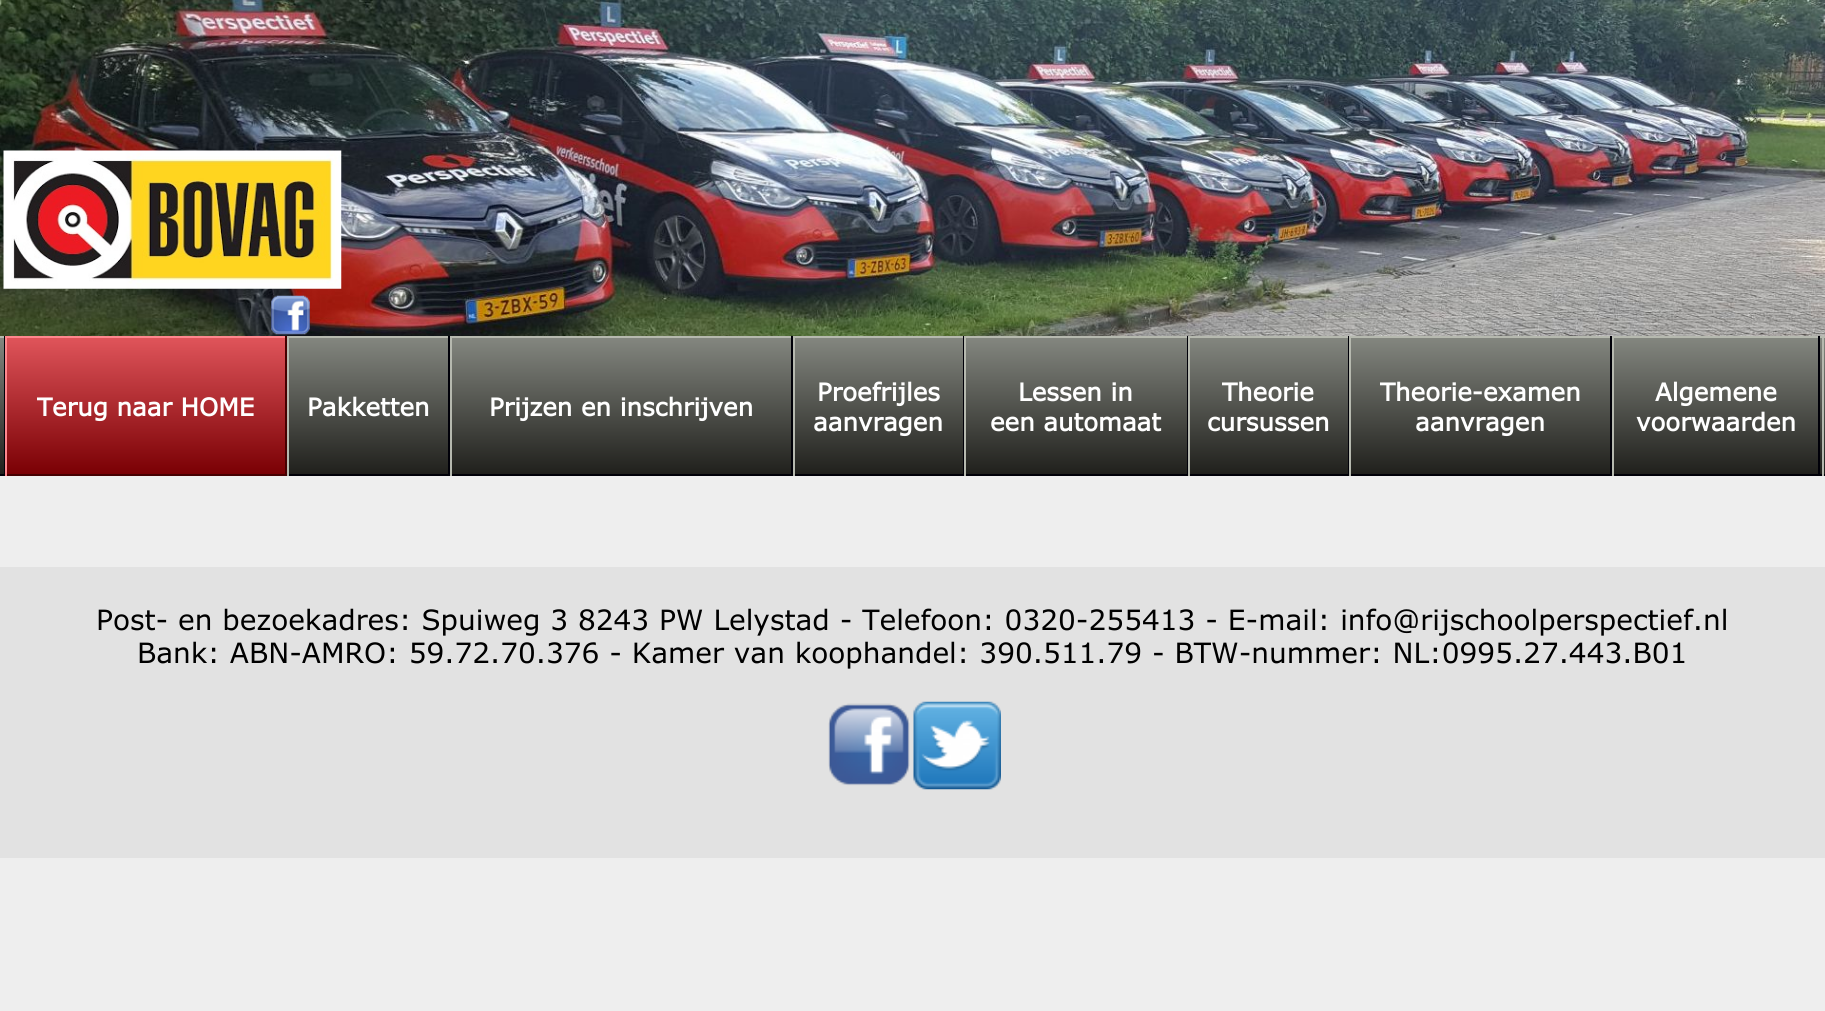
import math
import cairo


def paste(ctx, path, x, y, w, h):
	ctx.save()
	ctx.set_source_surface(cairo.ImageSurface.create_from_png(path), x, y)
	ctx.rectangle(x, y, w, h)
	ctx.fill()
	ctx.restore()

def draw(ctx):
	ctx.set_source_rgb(0.933, 0.933, 0.933)
	ctx.paint()
	paste(ctx, 'media/1.png', 0, 0, 1825, 336)
	paste(ctx, 'media/2.png', 3, 150, 339, 139)
	paste(ctx, 'media/3.png', 271, 295, 39, 40)
	gradient = cairo.LinearGradient(913, 338, 913, 474)
	gradient.add_color_stop_rgba(0, 0.514, 0.525, 0.498, 1)
	gradient.add_color_stop_rgba(1, 0.125, 0.125, 0.11, 1)
	ctx.set_source(gradient)
	ctx.rectangle(0, 338, 1825, 136)
	ctx.fill()
	ctx.set_source_rgb(0.714, 0.725, 0.686)
	ctx.rectangle(0, 336, 1825, 2)
	ctx.fill()
	ctx.set_source_rgb(0, 0, 0.035)
	ctx.rectangle(0, 474, 1825, 2)
	ctx.fill()
	ctx.set_source_rgb(0.714, 0.725, 0.686)
	ctx.rectangle(1822, 336, 2, 140)
	ctx.fill()
	ctx.set_source_rgb(0, 0, 0.035)
	ctx.rectangle(4, 336, 1, 140)
	ctx.fill()
	gradient = cairo.LinearGradient(146, 338, 146, 474)
	gradient.add_color_stop_rgba(0, 0.875, 0.329, 0.353, 1)
	gradient.add_color_stop_rgba(1, 0.478, 0, 0.016, 1)
	ctx.set_source(gradient)
	ctx.rectangle(7, 338, 278, 136)
	ctx.fill()
	ctx.set_source_rgb(1, 0.529, 0.553)
	ctx.rectangle(5, 336, 282, 2)
	ctx.fill()
	ctx.set_source_rgb(0.278, 0, 0.004)
	ctx.rectangle(285, 336, 2, 140)
	ctx.rectangle(5, 474, 282, 2)
	ctx.fill()
	ctx.set_source_rgb(1, 0.529, 0.553)
	ctx.rectangle(5, 336, 2, 140)
	ctx.fill()
	ctx.select_font_face('Verdana', cairo.FONT_SLANT_NORMAL, cairo.FONT_WEIGHT_BOLD)
	ctx.set_font_size(24.5)
	ctx.set_source_rgb(1, 1, 1)
	ctx.move_to(37, 416)
	ctx.show_text('Terug naar HOME')
	ctx.set_source_rgb(0, 0, 0.035)
	ctx.rectangle(448, 336, 2, 140)
	ctx.fill()
	ctx.set_source_rgb(0.714, 0.725, 0.686)
	ctx.rectangle(287, 336, 2, 140)
	ctx.fill()
	ctx.set_source_rgb(1, 1, 1)
	ctx.move_to(307, 416)
	ctx.show_text('Pakketten')
	ctx.set_source_rgb(0, 0, 0.035)
	ctx.rectangle(791, 336, 2, 140)
	ctx.fill()
	ctx.set_source_rgb(0.714, 0.725, 0.686)
	ctx.rectangle(450, 336, 2, 140)
	ctx.fill()
	ctx.set_source_rgb(1, 1, 1)
	ctx.move_to(489, 416)
	ctx.show_text('Prijzen en inschrijven')
	ctx.set_source_rgb(0, 0, 0.035)
	ctx.rectangle(963, 336, 1, 140)
	ctx.fill()
	ctx.set_source_rgb(0.714, 0.725, 0.686)
	ctx.rectangle(793, 336, 2, 140)
	ctx.fill()
	ctx.set_source_rgb(1, 1, 1)
	ctx.move_to(817, 401)
	ctx.show_text('Proefrijles')
	ctx.move_to(813, 431)
	ctx.show_text('aanvragen')
	ctx.set_source_rgb(0, 0, 0.035)
	ctx.rectangle(1187, 336, 1, 140)
	ctx.fill()
	ctx.set_source_rgb(0.714, 0.725, 0.686)
	ctx.rectangle(964, 336, 2, 140)
	ctx.fill()
	ctx.set_source_rgb(1, 1, 1)
	ctx.move_to(1018, 401)
	ctx.show_text('Lessen in')
	ctx.move_to(990, 431)
	ctx.show_text('een automaat')
	ctx.set_source_rgb(0, 0, 0.035)
	ctx.rectangle(1348, 336, 1, 140)
	ctx.fill()
	ctx.set_source_rgb(0.714, 0.725, 0.686)
	ctx.rectangle(1188, 336, 2, 140)
	ctx.fill()
	ctx.set_source_rgb(1, 1, 1)
	ctx.move_to(1222, 401)
	ctx.show_text('Theorie')
	ctx.move_to(1207, 431)
	ctx.show_text('cursussen')
	ctx.set_source_rgb(0, 0, 0.035)
	ctx.rectangle(1610, 336, 2, 140)
	ctx.fill()
	ctx.set_source_rgb(0.714, 0.725, 0.686)
	ctx.rectangle(1349, 336, 2, 140)
	ctx.fill()
	ctx.set_source_rgb(1, 1, 1)
	ctx.move_to(1380, 401)
	ctx.show_text('Theorie-examen')
	ctx.move_to(1415, 431)
	ctx.show_text('aanvragen')
	ctx.set_source_rgb(0, 0, 0.035)
	ctx.rectangle(1818, 336, 2, 140)
	ctx.fill()
	ctx.set_source_rgb(0.714, 0.725, 0.686)
	ctx.rectangle(1612, 336, 2, 140)
	ctx.fill()
	ctx.set_source_rgb(1, 1, 1)
	ctx.move_to(1655, 401)
	ctx.show_text('Algemene')
	ctx.move_to(1636, 431)
	ctx.show_text('voorwaarden')
	ctx.set_source_rgb(0.886, 0.886, 0.886)
	ctx.rectangle(0, 567, 1825, 291)
	ctx.fill()
	ctx.select_font_face('Verdana')
	ctx.set_font_size(28)
	ctx.set_source_rgb(0, 0, 0)
	ctx.move_to(96, 630)
	ctx.show_text('Post- en bezoekadres: Spuiweg 3 8243 PW Lelystad - Telefoon: 0320-255413 - E-mail: info@rijschoolperspectief.nl')
	ctx.move_to(137, 663)
	ctx.show_text('Bank: ABN-AMRO: 59.72.70.376 - Kamer van koophandel: 390.511.79 - BTW-nummer: NL:0995.27.443.B01')
	paste(ctx, 'media/4.png', 828, 703, 82, 83)
	paste(ctx, 'media/5.png', 913, 701, 88, 89)


surface = cairo.ImageSurface(cairo.FORMAT_RGB24, 1825, 1011)
ctx = cairo.Context(surface)
options = cairo.FontOptions()
options.set_hint_metrics(cairo.HINT_METRICS_OFF)
options.set_hint_style(cairo.HINT_STYLE_NONE)
ctx.set_font_options(options)
ctx.set_miter_limit(4)
draw(ctx)
surface.write_to_png('image.png')
